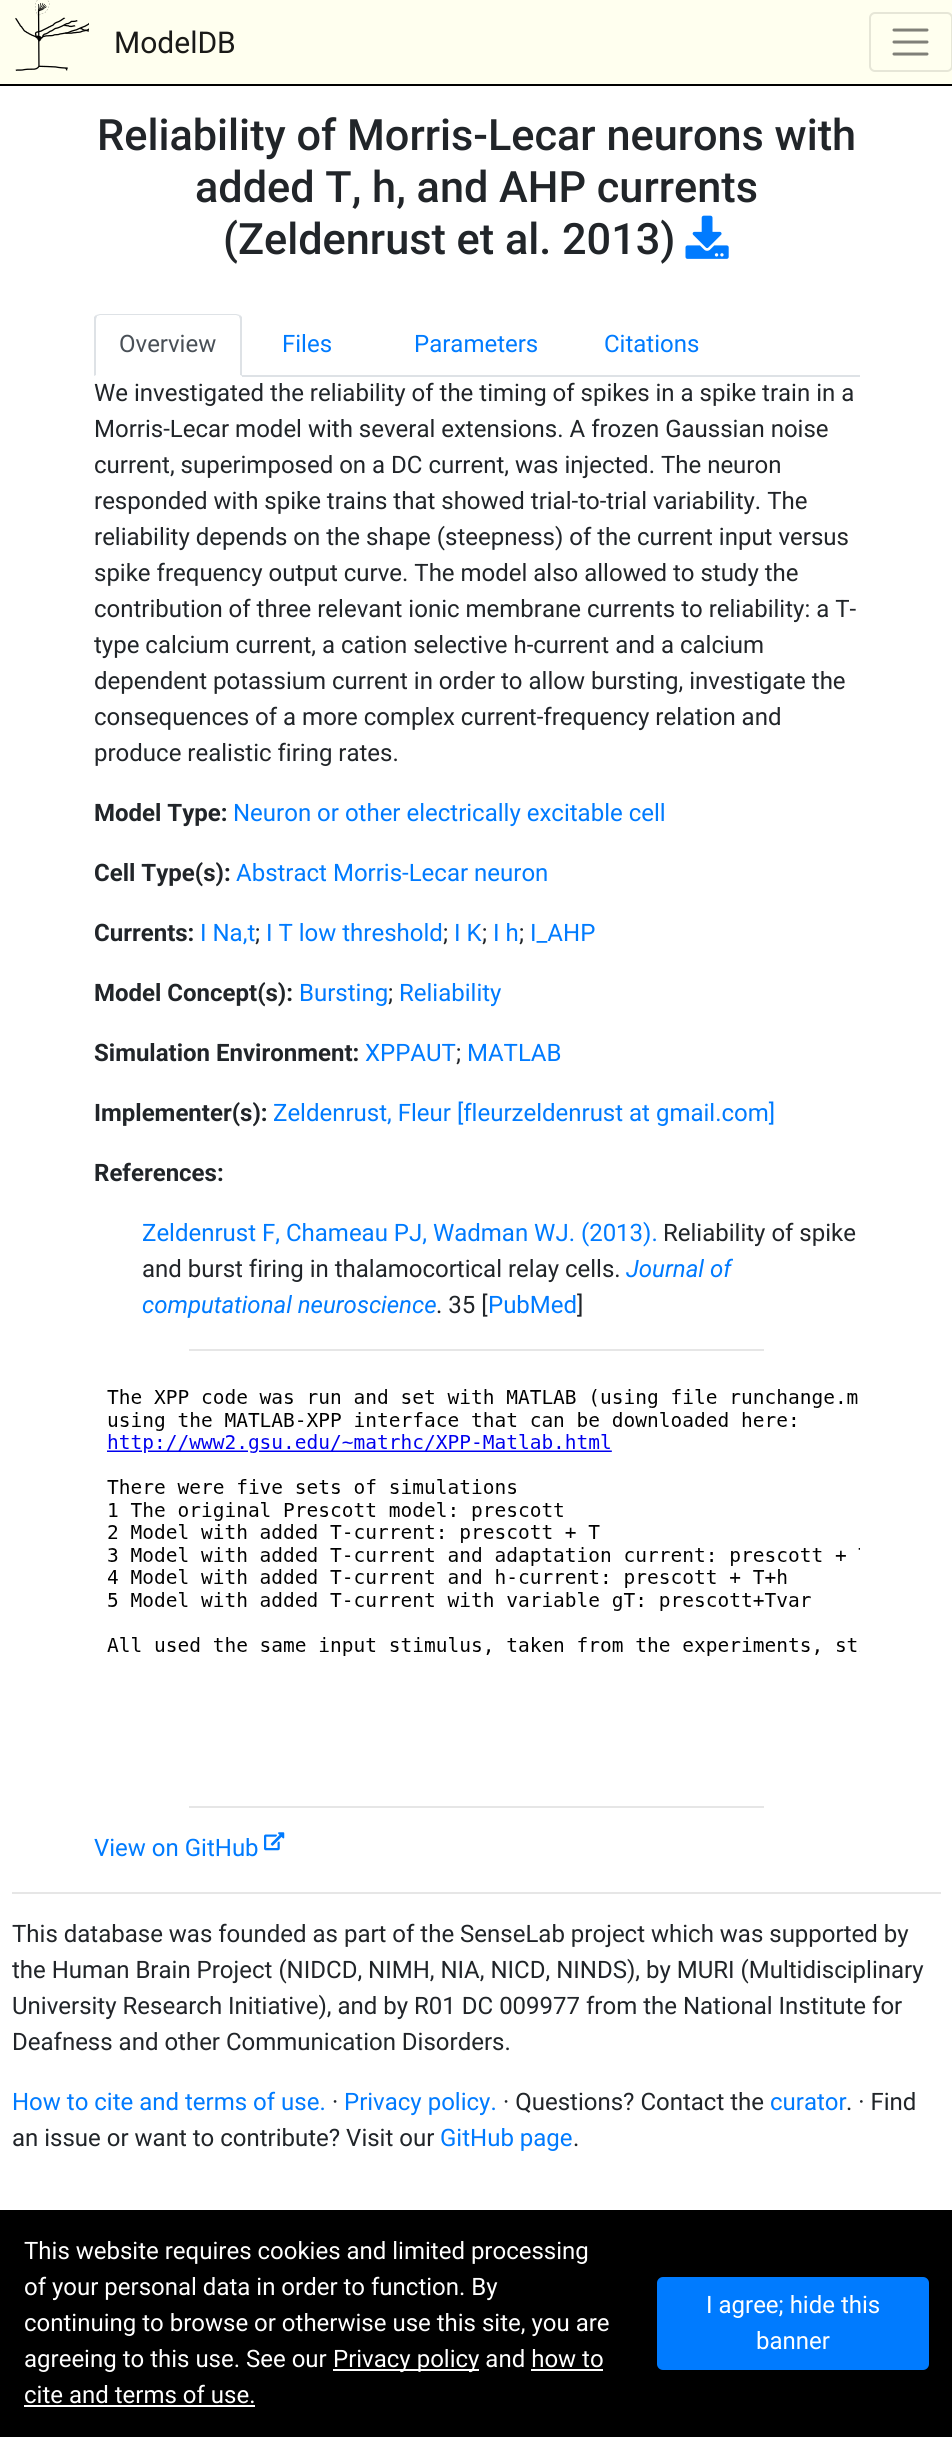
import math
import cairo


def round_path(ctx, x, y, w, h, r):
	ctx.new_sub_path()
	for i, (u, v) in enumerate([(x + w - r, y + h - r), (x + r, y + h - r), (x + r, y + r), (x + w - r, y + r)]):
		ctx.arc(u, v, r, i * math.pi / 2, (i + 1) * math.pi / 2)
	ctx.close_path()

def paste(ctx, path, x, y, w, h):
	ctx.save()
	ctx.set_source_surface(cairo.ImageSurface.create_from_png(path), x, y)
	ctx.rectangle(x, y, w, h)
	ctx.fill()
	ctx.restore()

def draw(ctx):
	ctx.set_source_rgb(1, 1, 1)
	ctx.paint()
	ctx.set_source_rgb(1, 1, 0.937)
	ctx.rectangle(0, 0, 952, 84)
	ctx.fill()
	ctx.set_source_rgb(0, 0, 0)
	ctx.rectangle(0, 84, 952, 2)
	ctx.fill()
	paste(ctx, 'media/1.png', 15, 0, 74, 71)
	ctx.select_font_face('Roboto')
	ctx.set_font_size(30)
	ctx.set_source_rgb(0.102, 0.102, 0.094)
	ctx.move_to(114, 53)
	ctx.show_text('ModelDB')
	round_path(ctx, 870, 13, 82, 58, 5)
	ctx.set_source_rgb(0.902, 0.902, 0.843)
	ctx.stroke()
	ctx.new_path()
	ctx.move_to(894, 30)
	ctx.line_to(927, 30)
	ctx.move_to(894, 42)
	ctx.line_to(927, 42)
	ctx.move_to(894, 54)
	ctx.line_to(927, 54)
	ctx.set_source_rgb(0.502, 0.502, 0.471)
	ctx.set_line_width(3)
	ctx.set_line_cap(cairo.LINE_CAP_ROUND)
	ctx.stroke()
	ctx.select_font_face('Roboto Medium')
	ctx.set_font_size(43.25)
	ctx.set_source_rgb(0.129, 0.145, 0.161)
	for x, y, s in [
		(97, 150, 'Reliability of Morris-Lecar neurons with'),
		(195, 202, 'added T, h, and AHP currents'),
		(223, 254, '(Zeldenrust et al. 2013)'),
	]:
		ctx.move_to(x, y)
		ctx.show_text(s)
	paste(ctx, 'media/2.png', 685, 215, 44, 44)
	ctx.set_source_rgb(0.871, 0.886, 0.902)
	ctx.rectangle(242, 375, 618, 2)
	ctx.fill()
	ctx.new_path()
	ctx.move_to(100, 314)
	ctx.line_to(96, 315)
	ctx.line_to(97, 316)
	ctx.line_to(100, 315)
	ctx.line_to(236, 315)
	ctx.line_to(239, 316)
	ctx.line_to(240, 315)
	ctx.line_to(236, 314)
	ctx.close_path()
	ctx.fill()
	ctx.new_path()
	ctx.move_to(240, 315)
	ctx.line_to(242, 317)
	ctx.line_to(242, 376)
	ctx.line_to(240, 375)
	ctx.line_to(240, 320)
	ctx.curve_to(240, 318, 239, 317, 239, 316)
	ctx.close_path()
	ctx.fill()
	ctx.set_source_rgb(1, 1, 1)
	ctx.new_path()
	ctx.move_to(241, 376)
	ctx.line_to(95, 376)
	ctx.line_to(96, 375)
	ctx.line_to(240, 375)
	ctx.close_path()
	ctx.fill()
	ctx.set_source_rgb(0.871, 0.886, 0.902)
	ctx.new_path()
	ctx.move_to(94, 317)
	ctx.line_to(96, 315)
	ctx.line_to(97, 316)
	ctx.curve_to(97, 317, 96, 318, 96, 320)
	ctx.line_to(96, 375)
	ctx.line_to(94, 376)
	ctx.close_path()
	ctx.fill()
	ctx.select_font_face('Roboto')
	ctx.set_font_size(24)
	ctx.set_source_rgb(0.286, 0.314, 0.341)
	ctx.move_to(119, 352)
	ctx.show_text('Overview')
	ctx.set_source_rgb(0, 0.482, 1)
	for x, y, s in [
		(282, 352, 'Files'),
		(414, 352, 'Parameters'),
		(604, 352, 'Citations'),
	]:
		ctx.move_to(x, y)
		ctx.show_text(s)
	ctx.set_source_rgb(0.129, 0.145, 0.161)
	for x, y, s in [
		(94, 401, 'We investigated the reliability of the timing of spikes in a spike train in a'),
		(94, 437, 'Morris-Lecar model with several extensions. A frozen Gaussian noise'),
		(94, 473, 'current, superimposed on a DC current, was injected. The neuron'),
		(94, 509, 'responded with spike trains that showed trial-to-trial variability. The'),
		(94, 545, 'reliability depends on the shape (steepness) of the current input versus'),
		(94, 581, 'spike frequency output curve. The model also allowed to study the'),
		(94, 617, 'contribution of three relevant ionic membrane currents to reliability: a T-'),
		(94, 653, 'type calcium current, a cation selective h-current and a calcium'),
		(94, 689, 'dependent potassium current in order to allow bursting, investigate the'),
		(94, 725, 'consequences of a more complex current-frequency relation and'),
		(94, 761, 'produce realistic firing rates.'),
	]:
		ctx.move_to(x, y)
		ctx.show_text(s)
	ctx.select_font_face('Roboto', cairo.FONT_SLANT_NORMAL, cairo.FONT_WEIGHT_BOLD)
	ctx.move_to(94, 821)
	ctx.show_text('Model Type:')
	ctx.select_font_face('Roboto')
	ctx.set_source_rgb(0, 0.482, 1)
	ctx.move_to(233, 821)
	ctx.show_text('Neuron or other electrically excitable cell')
	ctx.select_font_face('Roboto', cairo.FONT_SLANT_NORMAL, cairo.FONT_WEIGHT_BOLD)
	ctx.set_source_rgb(0.129, 0.145, 0.161)
	ctx.move_to(94, 881)
	ctx.show_text('Cell Type(s):')
	ctx.select_font_face('Roboto')
	ctx.set_source_rgb(0, 0.482, 1)
	ctx.move_to(236, 881)
	ctx.show_text('Abstract Morris-Lecar neuron')
	ctx.select_font_face('Roboto', cairo.FONT_SLANT_NORMAL, cairo.FONT_WEIGHT_BOLD)
	ctx.set_source_rgb(0.129, 0.145, 0.161)
	ctx.move_to(94, 941)
	ctx.show_text('Currents:')
	ctx.select_font_face('Roboto')
	ctx.set_source_rgb(0, 0.482, 1)
	ctx.move_to(200, 941)
	ctx.show_text('I Na,t')
	ctx.set_source_rgb(0.129, 0.145, 0.161)
	ctx.move_to(255, 941)
	ctx.show_text(';')
	ctx.set_source_rgb(0, 0.482, 1)
	ctx.move_to(266, 941)
	ctx.show_text('I T low threshold')
	ctx.set_source_rgb(0.129, 0.145, 0.161)
	ctx.move_to(443, 941)
	ctx.show_text(';')
	ctx.set_source_rgb(0, 0.482, 1)
	ctx.move_to(454, 941)
	ctx.show_text('I K')
	ctx.set_source_rgb(0.129, 0.145, 0.161)
	ctx.move_to(482, 941)
	ctx.show_text(';')
	ctx.set_source_rgb(0, 0.482, 1)
	ctx.move_to(493, 941)
	ctx.show_text('I h')
	ctx.set_source_rgb(0.129, 0.145, 0.161)
	ctx.move_to(519, 941)
	ctx.show_text(';')
	ctx.set_source_rgb(0, 0.482, 1)
	ctx.move_to(530, 941)
	ctx.show_text('I_AHP')
	ctx.select_font_face('Roboto', cairo.FONT_SLANT_NORMAL, cairo.FONT_WEIGHT_BOLD)
	ctx.set_source_rgb(0.129, 0.145, 0.161)
	ctx.move_to(94, 1001)
	ctx.show_text('Model Concept(s):')
	ctx.select_font_face('Roboto')
	ctx.set_source_rgb(0, 0.482, 1)
	ctx.move_to(299, 1001)
	ctx.show_text('Bursting')
	ctx.set_source_rgb(0.129, 0.145, 0.161)
	ctx.move_to(388, 1001)
	ctx.show_text(';')
	ctx.set_source_rgb(0, 0.482, 1)
	ctx.move_to(399, 1001)
	ctx.show_text('Reliability')
	ctx.select_font_face('Roboto', cairo.FONT_SLANT_NORMAL, cairo.FONT_WEIGHT_BOLD)
	ctx.set_source_rgb(0.129, 0.145, 0.161)
	ctx.move_to(94, 1061)
	ctx.show_text('Simulation Environment:')
	ctx.select_font_face('Roboto')
	ctx.set_source_rgb(0, 0.482, 1)
	ctx.move_to(365, 1061)
	ctx.show_text('XPPAUT')
	ctx.set_source_rgb(0.129, 0.145, 0.161)
	ctx.move_to(456, 1061)
	ctx.show_text(';')
	ctx.set_source_rgb(0, 0.482, 1)
	ctx.move_to(467, 1061)
	ctx.show_text('MATLAB')
	ctx.select_font_face('Roboto', cairo.FONT_SLANT_NORMAL, cairo.FONT_WEIGHT_BOLD)
	ctx.set_source_rgb(0.129, 0.145, 0.161)
	ctx.move_to(94, 1121)
	ctx.show_text('Implementer(s):')
	ctx.select_font_face('Roboto')
	ctx.set_source_rgb(0, 0.482, 1)
	ctx.move_to(273, 1121)
	ctx.show_text('Zeldenrust, Fleur [fleurzeldenrust at gmail.com]')
	ctx.select_font_face('Roboto', cairo.FONT_SLANT_NORMAL, cairo.FONT_WEIGHT_BOLD)
	ctx.set_source_rgb(0.129, 0.145, 0.161)
	ctx.move_to(94, 1181)
	ctx.show_text('References:')
	ctx.select_font_face('Roboto')
	ctx.set_source_rgb(0, 0.482, 1)
	ctx.move_to(142, 1241)
	ctx.show_text('Zeldenrust F, Chameau PJ, Wadman WJ. (2013).')
	ctx.set_source_rgb(0.129, 0.145, 0.161)
	ctx.move_to(663, 1241)
	ctx.show_text('Reliability of spike')
	ctx.move_to(142, 1277)
	ctx.show_text('and burst firing in thalamocortical relay cells.')
	ctx.select_font_face('Roboto', cairo.FONT_SLANT_ITALIC)
	ctx.set_source_rgb(0, 0.482, 1)
	ctx.move_to(626, 1277)
	ctx.show_text('Journal of')
	ctx.move_to(142, 1313)
	ctx.show_text('computational neuroscience')
	ctx.select_font_face('Roboto')
	ctx.set_source_rgb(0.129, 0.145, 0.161)
	ctx.move_to(436, 1313)
	ctx.show_text('. 35 [')
	ctx.set_source_rgb(0, 0.482, 1)
	ctx.move_to(488, 1313)
	ctx.show_text('PubMed')
	ctx.set_source_rgb(0.129, 0.145, 0.161)
	ctx.move_to(577, 1313)
	ctx.show_text(']')
	ctx.set_source_rgb(0.902, 0.902, 0.902)
	ctx.rectangle(189, 1349, 575, 2)
	ctx.fill()
	paste(ctx, 'media/3.png', 107, 1389, 753, 267)
	ctx.rectangle(189, 1806, 575, 2)
	ctx.fill()
	ctx.set_source_rgb(0, 0.482, 1)
	ctx.move_to(94, 1856)
	ctx.show_text('View on GitHub')
	paste(ctx, 'media/4.png', 264, 1832, 21, 19)
	ctx.set_source_rgb(0.902, 0.902, 0.902)
	ctx.rectangle(12, 1892, 929, 2)
	ctx.fill()
	ctx.set_source_rgb(0.129, 0.145, 0.161)
	for x, y, s in [
		(12, 1942, 'This database was founded as part of the SenseLab project which was supported by'),
		(12, 1978, 'the Human Brain Project (NIDCD, NIMH, NIA, NICD, NINDS), by MURI (Multidisciplinary'),
		(12, 2014, 'University Research Initiative), and by R01 DC 009977 from the National Institute for'),
		(12, 2050, 'Deafness and other Communication Disorders.'),
	]:
		ctx.move_to(x, y)
		ctx.show_text(s)
	ctx.set_source_rgb(0, 0.482, 1)
	ctx.move_to(12, 2110)
	ctx.show_text('How to cite and terms of use.')
	ctx.set_source_rgb(0.129, 0.145, 0.161)
	ctx.move_to(332, 2110)
	ctx.show_text('·')
	ctx.set_source_rgb(0, 0.482, 1)
	ctx.move_to(344, 2110)
	ctx.show_text('Privacy policy.')
	ctx.set_source_rgb(0.129, 0.145, 0.161)
	ctx.move_to(503, 2110)
	ctx.show_text('· Questions? Contact the')
	ctx.set_source_rgb(0, 0.482, 1)
	ctx.move_to(770, 2110)
	ctx.show_text('curator')
	ctx.set_source_rgb(0.129, 0.145, 0.161)
	ctx.move_to(846, 2110)
	ctx.show_text('. · Find')
	ctx.move_to(12, 2146)
	ctx.show_text('an issue or want to contribute? Visit our')
	ctx.set_source_rgb(0, 0.482, 1)
	ctx.move_to(440, 2146)
	ctx.show_text('GitHub page')
	ctx.set_source_rgb(0.129, 0.145, 0.161)
	ctx.move_to(573, 2146)
	ctx.show_text('.')
	ctx.set_source_rgb(0, 0, 0)
	ctx.rectangle(0, 2210, 952, 227)
	ctx.fill()
	ctx.set_source_rgb(1, 1, 1)
	for x, y, s in [
		(24, 2259, 'This website requires cookies and limited processing'),
		(24, 2295, 'of your personal data in order to function. By'),
		(24, 2331, 'continuing to browse or otherwise use this site, you are'),
		(24, 2367, 'agreeing to this use. See our'),
	]:
		ctx.move_to(x, y)
		ctx.show_text(s)
	ctx.rectangle(333, 2369, 146, 2)
	ctx.fill()
	ctx.move_to(333, 2367)
	ctx.show_text('Privacy policy and how to')
	ctx.move_to(24, 2403)
	ctx.show_text('cite and terms of use.')
	ctx.rectangle(531, 2369, 72, 2)
	ctx.fill()
	ctx.rectangle(24, 2405, 231, 2)
	ctx.fill()
	ctx.set_source_rgb(0, 0.482, 1)
	round_path(ctx, 658, 2278, 270, 91, 5)
	ctx.fill_preserve()
	ctx.set_line_width(2)
	ctx.set_line_cap(cairo.LINE_CAP_BUTT)
	ctx.stroke()
	ctx.set_source_rgb(1, 1, 1)
	ctx.move_to(706, 2313)
	ctx.show_text('I agree; hide this')
	ctx.move_to(756, 2349)
	ctx.show_text('banner')


surface = cairo.ImageSurface(cairo.FORMAT_RGB24, 952, 2437)
ctx = cairo.Context(surface)
options = cairo.FontOptions()
options.set_hint_metrics(cairo.HINT_METRICS_OFF)
options.set_hint_style(cairo.HINT_STYLE_NONE)
ctx.set_font_options(options)
ctx.set_miter_limit(4)
draw(ctx)
surface.write_to_png('image.png')
